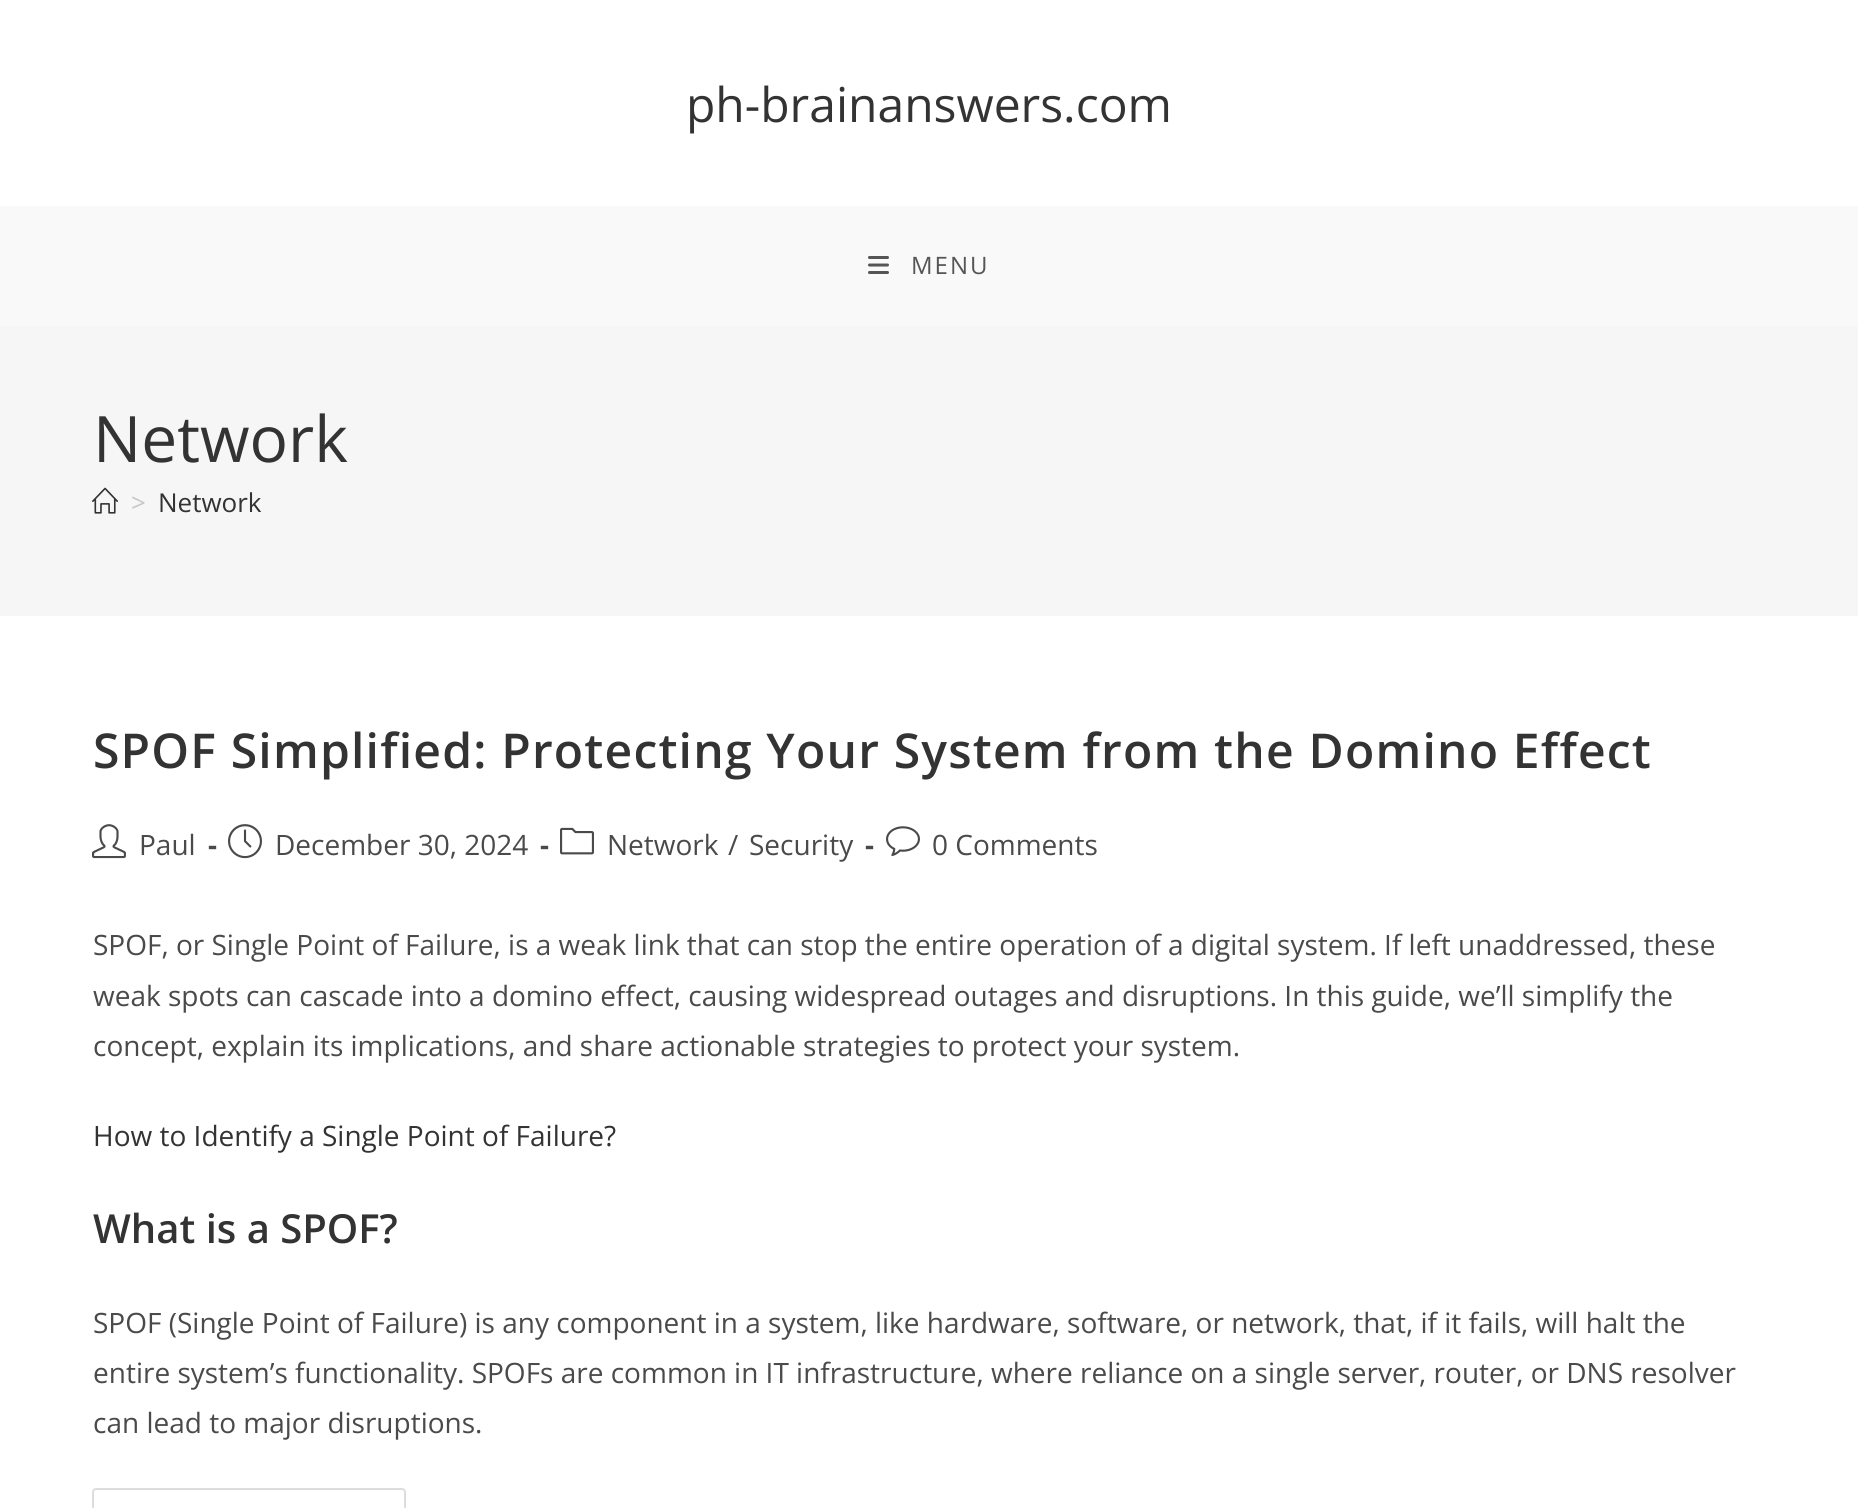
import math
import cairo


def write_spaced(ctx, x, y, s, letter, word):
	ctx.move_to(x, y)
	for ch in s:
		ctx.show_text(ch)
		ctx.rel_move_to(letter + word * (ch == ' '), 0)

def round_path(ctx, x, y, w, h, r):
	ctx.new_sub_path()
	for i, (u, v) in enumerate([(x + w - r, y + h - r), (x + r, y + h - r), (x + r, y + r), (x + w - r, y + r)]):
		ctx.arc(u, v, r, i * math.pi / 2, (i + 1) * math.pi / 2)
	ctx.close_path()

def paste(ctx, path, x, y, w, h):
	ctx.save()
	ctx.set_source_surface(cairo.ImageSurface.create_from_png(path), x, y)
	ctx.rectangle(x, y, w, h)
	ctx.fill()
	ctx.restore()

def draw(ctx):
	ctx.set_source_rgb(1, 1, 1)
	ctx.paint()
	ctx.select_font_face('Open Sans')
	ctx.set_font_size(48)
	ctx.set_source_rgb(0.2, 0.2, 0.2)
	ctx.move_to(686, 122)
	ctx.show_text('ph-brainanswers.com')
	ctx.set_source_rgb(0.976, 0.976, 0.976)
	ctx.rectangle(0, 206, 1858, 120)
	ctx.fill()
	paste(ctx, 'media/1.png', 868, 256, 21, 18)
	ctx.set_font_size(24)
	ctx.set_source_rgb(0.333, 0.333, 0.333)
	write_spaced(ctx, 911, 274, 'MENU', 2, 0)
	ctx.set_source_rgb(0.961, 0.961, 0.961)
	ctx.rectangle(0, 326, 1858, 290)
	ctx.fill()
	ctx.set_font_size(64)
	ctx.set_source_rgb(0.2, 0.2, 0.2)
	ctx.move_to(93, 462)
	ctx.show_text('Network')
	paste(ctx, 'media/2.png', 92, 487, 26, 27)
	ctx.set_font_size(26)
	ctx.set_source_rgb(0.776, 0.776, 0.776)
	ctx.move_to(131, 512)
	ctx.show_text('>')
	ctx.set_source_rgb(0.2, 0.2, 0.2)
	ctx.move_to(158, 512)
	ctx.show_text('Network')
	ctx.select_font_face('Open Sans SemiBold')
	ctx.set_font_size(48)
	write_spaced(ctx, 93, 768, 'SPOF Simplified: Protecting Your System from the Domino Effect', 1.2, 0)
	paste(ctx, 'media/3.png', 92, 824, 34, 35)
	ctx.select_font_face('Open Sans')
	ctx.set_font_size(28)
	ctx.set_source_rgb(0.29, 0.29, 0.29)
	ctx.move_to(139, 855)
	ctx.show_text('Paul')
	ctx.select_font_face('Open Sans', cairo.FONT_SLANT_NORMAL, cairo.FONT_WEIGHT_BOLD)
	ctx.move_to(208, 855)
	ctx.show_text('-')
	paste(ctx, 'media/4.png', 228, 824, 34, 35)
	ctx.select_font_face('Open Sans')
	ctx.move_to(275, 855)
	ctx.show_text('December 30, 2024')
	ctx.select_font_face('Open Sans', cairo.FONT_SLANT_NORMAL, cairo.FONT_WEIGHT_BOLD)
	ctx.move_to(540, 855)
	ctx.show_text('-')
	paste(ctx, 'media/5.png', 560, 827, 34, 28)
	ctx.select_font_face('Open Sans')
	for x, y, s in [
		(607, 855, 'Network'),
		(728, 855, '/'),
		(749, 855, 'Security'),
	]:
		ctx.move_to(x, y)
		ctx.show_text(s)
	ctx.select_font_face('Open Sans', cairo.FONT_SLANT_NORMAL, cairo.FONT_WEIGHT_BOLD)
	ctx.move_to(865, 855)
	ctx.show_text('-')
	paste(ctx, 'media/6.png', 886, 826, 34, 30)
	ctx.select_font_face('Open Sans')
	for x, y, s in [
		(932, 855, '0 Comments'),
		(93, 955, 'SPOF, or Single Point of Failure, is a weak link that can stop the entire operation of a digital system. If left unaddressed, these'),
		(93, 1006, 'weak spots can cascade into a domino effect, causing widespread outages and disruptions. In this guide, we’ll simplify the'),
		(93, 1056, 'concept, explain its implications, and share actionable strategies to protect your system.'),
	]:
		ctx.move_to(x, y)
		ctx.show_text(s)
	ctx.set_source_rgb(0.2, 0.2, 0.2)
	ctx.move_to(93, 1146)
	ctx.show_text('How to Identify a Single Point of Failure?')
	ctx.select_font_face('Open Sans SemiBold')
	ctx.set_font_size(40)
	ctx.move_to(93, 1243)
	ctx.show_text('What is a SPOF?')
	ctx.select_font_face('Open Sans')
	ctx.set_font_size(28)
	ctx.set_source_rgb(0.29, 0.29, 0.29)
	for x, y, s in [
		(93, 1333, 'SPOF (Single Point of Failure) is any component in a system, like hardware, software, or network, that, if it fails, will halt the'),
		(93, 1383, 'entire system’s functionality. SPOFs are common in IT infrastructure, where reliance on a single server, router, or DNS resolver'),
		(93, 1433, 'can lead to major disruptions.'),
	]:
		ctx.move_to(x, y)
		ctx.show_text(s)
	round_path(ctx, 93, 1489, 312, 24, 3)
	ctx.set_source_rgb(0.867, 0.867, 0.867)
	ctx.stroke()


surface = cairo.ImageSurface(cairo.FORMAT_RGB24, 1858, 1508)
ctx = cairo.Context(surface)
options = cairo.FontOptions()
options.set_hint_metrics(cairo.HINT_METRICS_OFF)
options.set_hint_style(cairo.HINT_STYLE_NONE)
ctx.set_font_options(options)
ctx.set_miter_limit(4)
draw(ctx)
surface.write_to_png('image.png')
